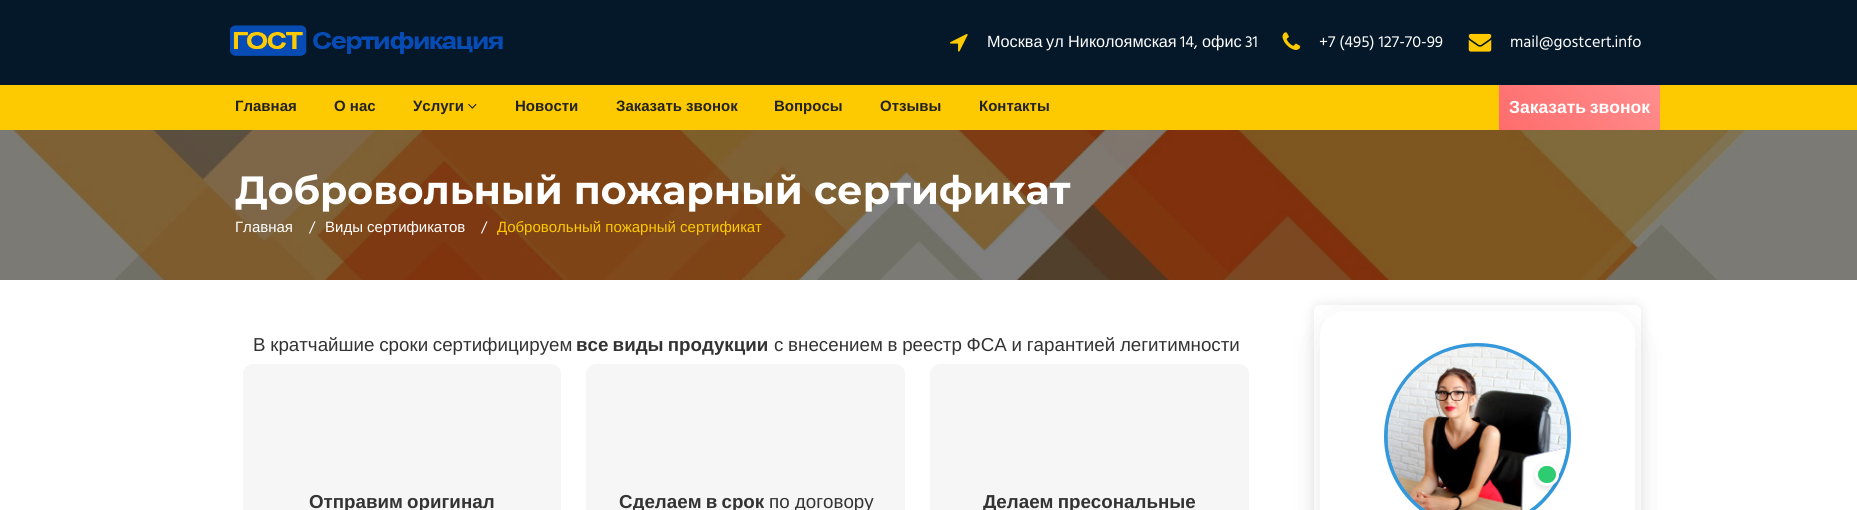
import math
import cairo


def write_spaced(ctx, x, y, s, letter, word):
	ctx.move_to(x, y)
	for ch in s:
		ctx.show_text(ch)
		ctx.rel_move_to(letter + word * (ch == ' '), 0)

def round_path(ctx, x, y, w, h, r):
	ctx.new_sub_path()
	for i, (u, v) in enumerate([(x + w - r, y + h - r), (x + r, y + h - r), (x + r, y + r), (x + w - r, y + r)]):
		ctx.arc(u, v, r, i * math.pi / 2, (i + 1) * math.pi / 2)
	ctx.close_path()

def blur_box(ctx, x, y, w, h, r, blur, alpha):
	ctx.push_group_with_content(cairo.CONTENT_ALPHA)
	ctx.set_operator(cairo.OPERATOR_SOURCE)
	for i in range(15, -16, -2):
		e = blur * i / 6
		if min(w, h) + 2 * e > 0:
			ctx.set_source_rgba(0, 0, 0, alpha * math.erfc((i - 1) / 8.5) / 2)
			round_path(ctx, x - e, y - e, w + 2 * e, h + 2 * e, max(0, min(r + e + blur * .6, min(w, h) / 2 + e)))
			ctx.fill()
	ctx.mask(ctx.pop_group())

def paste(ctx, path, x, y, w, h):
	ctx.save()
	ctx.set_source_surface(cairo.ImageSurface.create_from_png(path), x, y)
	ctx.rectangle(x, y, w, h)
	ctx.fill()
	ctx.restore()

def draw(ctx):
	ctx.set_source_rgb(1, 1, 1)
	ctx.paint()
	ctx.set_source_rgb(0.02, 0.094, 0.161)
	ctx.rectangle(0, 0, 1857, 85)
	ctx.fill()
	paste(ctx, 'media/1.png', 230, 25, 273, 31)
	paste(ctx, 'media/2.png', 950, 34, 18, 18)
	ctx.select_font_face('Liberation Sans')
	ctx.set_font_size(16.25)
	ctx.set_source_rgb(1, 1, 1)
	ctx.move_to(987, 47)
	ctx.show_text('Москва')
	ctx.move_to(1046, 47)
	ctx.show_text('ул Николоямская')
	ctx.select_font_face('Hind')
	ctx.move_to(1180, 47)
	ctx.show_text('14,')
	ctx.select_font_face('Liberation Sans')
	ctx.move_to(1202, 47)
	ctx.show_text('офис')
	ctx.select_font_face('Hind')
	ctx.move_to(1245, 47)
	ctx.show_text('31')
	paste(ctx, 'media/3.png', 1282, 32, 19, 18)
	ctx.move_to(1319, 47)
	ctx.show_text('+7 (495) 127-70-99')
	paste(ctx, 'media/4.png', 1468, 33, 24, 19)
	ctx.move_to(1510, 47)
	ctx.show_text('mail@gostcert.info')
	ctx.set_source_rgb(0.992, 0.788, 0)
	ctx.rectangle(0, 85, 1857, 45)
	ctx.fill()
	ctx.select_font_face('Liberation Sans', cairo.FONT_SLANT_NORMAL, cairo.FONT_WEIGHT_BOLD)
	ctx.set_font_size(15)
	ctx.set_source_rgb(0.133, 0.133, 0.133)
	for x, y, s in [
		(235, 111, 'Главная'),
		(334, 111, 'О нас'),
		(413, 111, 'Услуги'),
	]:
		ctx.move_to(x, y)
		ctx.show_text(s)
	paste(ctx, 'media/5.png', 468, 103, 9, 6)
	for x, y, s in [
		(515, 111, 'Новости'),
		(616, 111, 'Заказать звонок'),
		(774, 111, 'Вопросы'),
		(880, 111, 'Отзывы'),
		(979, 111, 'Контакты'),
	]:
		ctx.move_to(x, y)
		ctx.show_text(s)
	gradient = cairo.LinearGradient(1527, 163, 1632, 57)
	gradient.add_color_stop_rgba(0, 1, 0.42, 0.42, 1)
	gradient.add_color_stop_rgba(1, 1, 0.557, 0.557, 1)
	ctx.set_source(gradient)
	ctx.rectangle(1499, 85, 161, 45)
	ctx.fill()
	ctx.set_font_size(17.5)
	ctx.set_source_rgb(1, 1, 1)
	write_spaced(ctx, 1509, 113, 'Заказать звонок', 0, -1)
	paste(ctx, 'media/6.png', 0, 130, 1857, 150)
	ctx.select_font_face('Montserrat', cairo.FONT_SLANT_NORMAL, cairo.FONT_WEIGHT_BOLD)
	ctx.set_font_size(39.4)
	ctx.move_to(235, 204)
	ctx.show_text('Добровольный пожарный сертификат')
	ctx.select_font_face('Liberation Sans')
	ctx.set_font_size(15)
	ctx.move_to(235, 232)
	ctx.show_text('Главная')
	ctx.select_font_face('Hind')
	ctx.move_to(309, 232)
	ctx.show_text('/')
	ctx.select_font_face('Liberation Sans')
	ctx.move_to(325, 232)
	ctx.show_text('Виды сертификатов')
	ctx.select_font_face('Hind')
	ctx.move_to(481, 232)
	ctx.show_text('/')
	ctx.select_font_face('Liberation Sans')
	ctx.set_source_rgb(0.992, 0.788, 0)
	ctx.move_to(497, 232)
	ctx.show_text('Добровольный пожарный сертификат')
	ctx.set_font_size(18.75)
	ctx.set_source_rgb(0.2, 0.2, 0.2)
	write_spaced(ctx, 253, 351, 'В кратчайшие сроки сертифицируем', 0, -0.5)
	ctx.select_font_face('Liberation Sans', cairo.FONT_SLANT_NORMAL, cairo.FONT_WEIGHT_BOLD)
	write_spaced(ctx, 576, 351, 'все виды продукции', 0, -1)
	ctx.select_font_face('Liberation Sans')
	write_spaced(ctx, 774, 351, 'с внесением в реестр ФСА и гарантией легитимности', 0, -0.5)
	ctx.set_source_rgb(0.961, 0.961, 0.961)
	round_path(ctx, 243, 364, 318, 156, 10)
	ctx.fill()
	ctx.select_font_face('Liberation Sans', cairo.FONT_SLANT_NORMAL, cairo.FONT_WEIGHT_BOLD)
	ctx.set_source_rgb(0.2, 0.2, 0.2)
	write_spaced(ctx, 309, 508, 'Отправим оригинал', 0, -1)
	ctx.set_source_rgb(0.961, 0.961, 0.961)
	round_path(ctx, 586, 364, 319, 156, 10)
	ctx.fill()
	ctx.set_source_rgb(0.2, 0.2, 0.2)
	write_spaced(ctx, 619, 508, 'Сделаем в срок', 0, -1)
	ctx.select_font_face('Liberation Sans')
	ctx.move_to(769, 508)
	ctx.show_text('по договору')
	ctx.set_source_rgb(0.961, 0.961, 0.961)
	round_path(ctx, 930, 364, 319, 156, 10)
	ctx.fill()
	ctx.select_font_face('Liberation Sans', cairo.FONT_SLANT_NORMAL, cairo.FONT_WEIGHT_BOLD)
	ctx.set_source_rgb(0.2, 0.2, 0.2)
	write_spaced(ctx, 983, 508, 'Делаем пресональные', 0, -1)
	ctx.set_source_rgb(0.059, 0.055, 0.043)
	blur_box(ctx, 1314, 305, 327, 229, 6, 6, 0.1)
	ctx.set_source_rgb(1, 1, 1)
	round_path(ctx, 1314, 305, 327, 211, 6)
	ctx.fill()
	ctx.set_source_rgb(0, 0, 0)
	blur_box(ctx, 1320, 324, 315, 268, 25, 19, 0.08)
	ctx.set_source_rgb(1, 1, 1)
	round_path(ctx, 1320, 311, 315, 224, 25)
	ctx.fill()
	ctx.arc(1477.5, 436.5, 91.5, 0, 2 * math.pi)
	ctx.set_source_rgb(0.204, 0.596, 0.859)
	ctx.set_line_width(4)
	ctx.stroke()
	paste(ctx, 'media/7.png', 1387, 346, 181, 164)
	ctx.set_source_rgb(0, 0, 0)
	blur_box(ctx, 1535, 465, 24, 24, 12, 2.5, 0.1)
	ctx.set_source_rgb(0.18, 0.8, 0.443)
	round_path(ctx, 1536.5, 464.5, 21, 20, 10)
	ctx.fill_preserve()
	ctx.set_source_rgb(1, 1, 1)
	ctx.set_line_width(3)
	ctx.stroke()


surface = cairo.ImageSurface(cairo.FORMAT_RGB24, 1857, 510)
ctx = cairo.Context(surface)
options = cairo.FontOptions()
options.set_hint_metrics(cairo.HINT_METRICS_OFF)
options.set_hint_style(cairo.HINT_STYLE_NONE)
ctx.set_font_options(options)
ctx.set_miter_limit(4)
draw(ctx)
surface.write_to_png('image.png')
